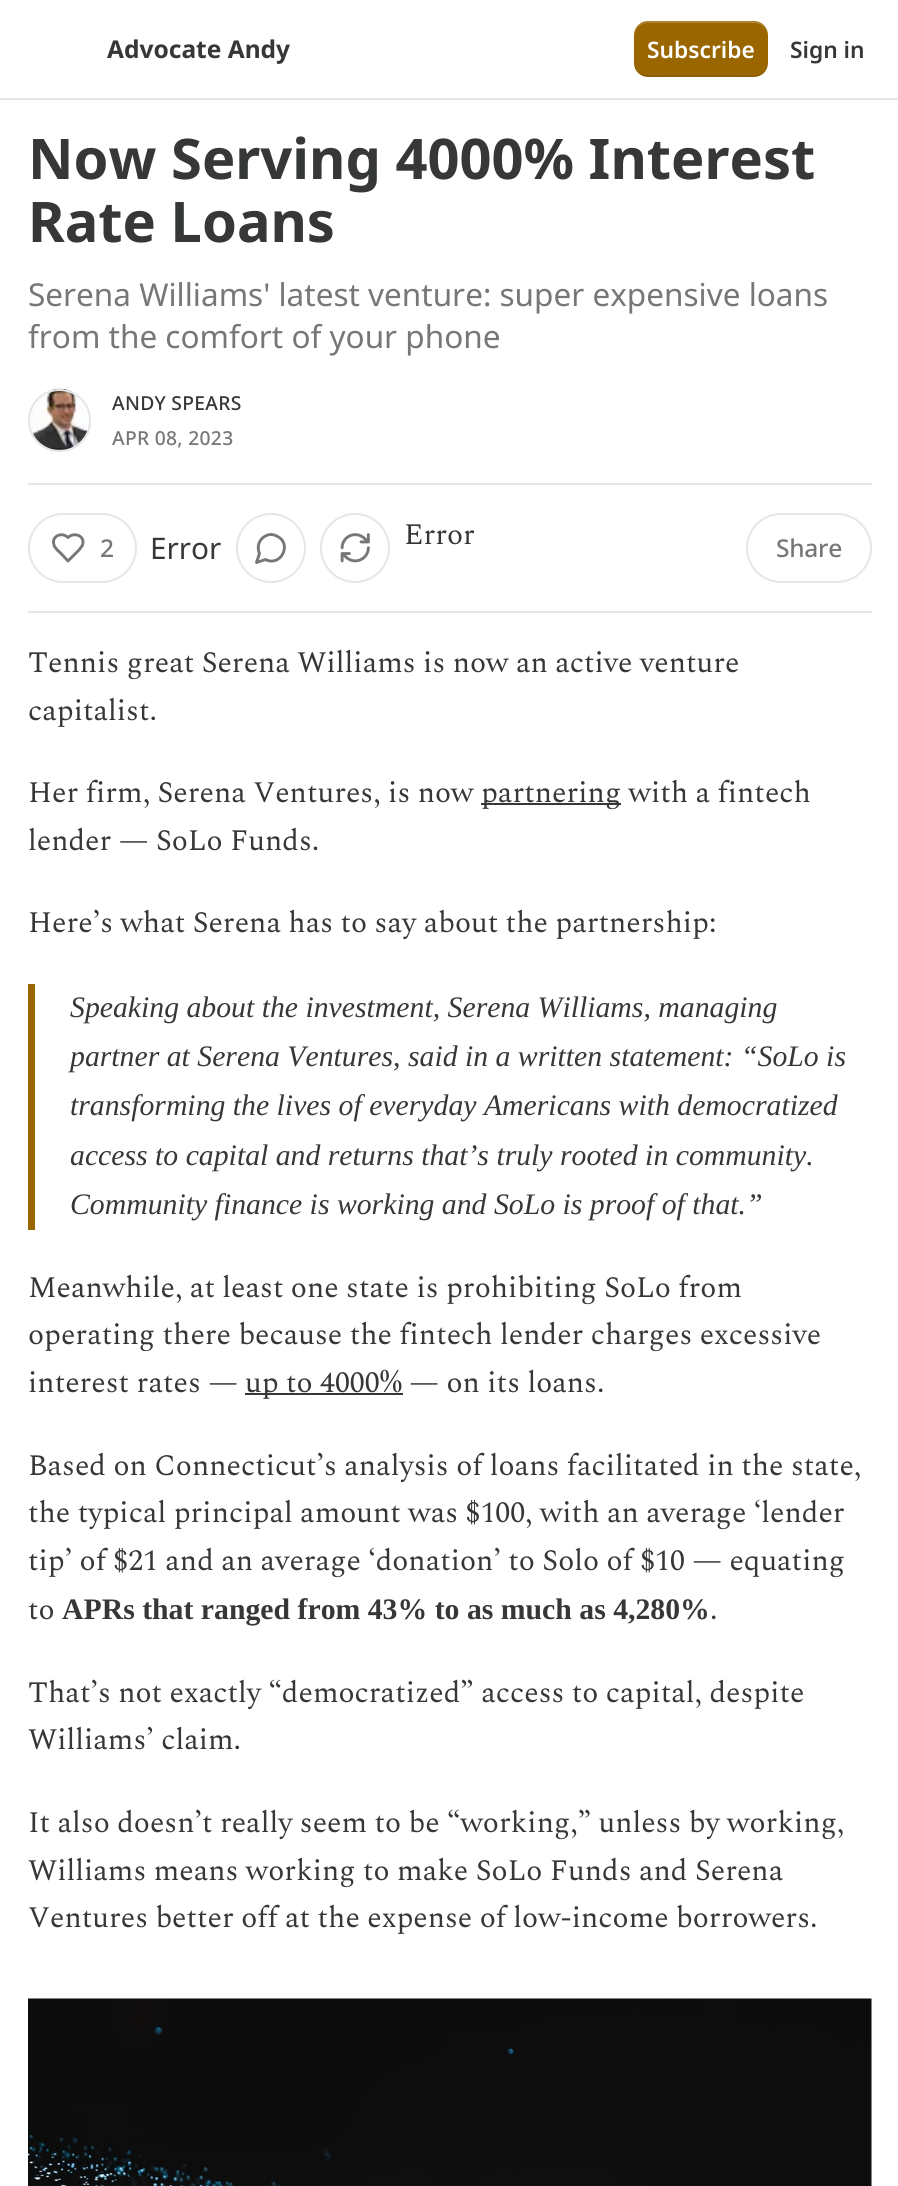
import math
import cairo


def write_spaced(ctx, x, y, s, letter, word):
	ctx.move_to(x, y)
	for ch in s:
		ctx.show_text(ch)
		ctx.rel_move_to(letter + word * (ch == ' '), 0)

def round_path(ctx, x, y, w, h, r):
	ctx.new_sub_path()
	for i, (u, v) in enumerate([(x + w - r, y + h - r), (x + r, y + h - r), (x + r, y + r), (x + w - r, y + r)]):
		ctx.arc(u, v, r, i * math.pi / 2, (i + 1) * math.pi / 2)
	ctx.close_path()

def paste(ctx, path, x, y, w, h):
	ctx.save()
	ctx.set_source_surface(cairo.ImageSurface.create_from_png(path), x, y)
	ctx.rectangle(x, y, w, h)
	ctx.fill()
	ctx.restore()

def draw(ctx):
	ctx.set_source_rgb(1, 1, 1)
	ctx.paint()
	ctx.set_source_rgb(0.902, 0.902, 0.902)
	ctx.rectangle(0, 98, 898, 2)
	ctx.fill()
	ctx.select_font_face('Noto Sans', cairo.FONT_SLANT_NORMAL, cairo.FONT_WEIGHT_BOLD)
	ctx.set_font_size(24.5)
	ctx.set_source_rgb(0.212, 0.216, 0.216)
	ctx.move_to(107, 58)
	ctx.show_text('Advocate Andy')
	ctx.set_source_rgb(0.604, 0.4, 0)
	round_path(ctx, 634, 21, 134, 56, 14)
	ctx.fill()
	ctx.set_source_rgba(0, 0, 0, 0.1)
	ctx.new_path()
	ctx.move_to(634, 61)
	ctx.curve_to(634, 80, 651, 77, 666, 77)
	ctx.line_to(736, 77)
	ctx.curve_to(751, 77, 768, 80, 768, 61)
	ctx.curve_to(768, 69, 762, 75, 754, 75)
	ctx.line_to(648, 75)
	ctx.curve_to(640, 75, 634, 69, 634, 61)
	ctx.close_path()
	ctx.fill()
	ctx.set_source_rgba(1, 1, 1, 0.2)
	ctx.new_path()
	ctx.move_to(648, 23)
	ctx.line_to(754, 23)
	ctx.curve_to(762, 23, 768, 29, 768, 37)
	ctx.curve_to(768, 18, 751, 21, 736, 21)
	ctx.line_to(666, 21)
	ctx.curve_to(651, 21, 634, 18, 634, 37)
	ctx.curve_to(634, 29, 640, 23, 648, 23)
	ctx.close_path()
	ctx.fill()
	ctx.select_font_face('Noto Sans SemiBold')
	ctx.set_font_size(22.75)
	ctx.set_source_rgb(1, 1, 1)
	ctx.move_to(647, 58)
	ctx.show_text('Subscribe')
	ctx.set_source_rgb(0.212, 0.216, 0.216)
	ctx.move_to(790, 58)
	ctx.show_text('Sign in')
	ctx.select_font_face('Noto Sans', cairo.FONT_SLANT_NORMAL, cairo.FONT_WEIGHT_BOLD)
	ctx.set_font_size(56)
	ctx.move_to(28, 179)
	ctx.show_text('Now Serving 4000% Interest')
	ctx.move_to(28, 242)
	ctx.show_text('Rate Loans')
	ctx.select_font_face('Noto Sans')
	ctx.set_font_size(31.5)
	ctx.set_source_rgb(0.467, 0.467, 0.467)
	ctx.move_to(28, 306)
	ctx.show_text('Serena Williams\' latest venture: super expensive loans')
	ctx.move_to(28, 348)
	ctx.show_text('from the comfort of your phone')
	ctx.new_path()
	ctx.arc(59.5, 420.5, 30.5, 0, 2 * math.pi)
	ctx.set_source_rgb(0.902, 0.902, 0.902)
	ctx.stroke()
	paste(ctx, 'media/1.png', 29, 388, 62, 64)
	ctx.arc(59.5, 420.5, 30.5, 0, 2 * math.pi)
	ctx.stroke()
	ctx.select_font_face('Noto Sans Medium')
	ctx.set_font_size(19.25)
	ctx.set_source_rgb(0.212, 0.216, 0.216)
	write_spaced(ctx, 112, 410, 'ANDY SPEARS', 0.3, 0)
	ctx.set_source_rgb(0.467, 0.467, 0.467)
	write_spaced(ctx, 112, 445, 'APR 08, 2023', 0.3, 0)
	ctx.set_source_rgb(0.902, 0.902, 0.902)
	ctx.rectangle(28, 483, 844, 2)
	ctx.fill()
	ctx.rectangle(28, 611, 844, 2)
	ctx.fill()
	ctx.arc(271, 548, 34, 0, 2 * math.pi)
	ctx.stroke()
	ctx.new_path()
	ctx.move_to(265.5, 559.5)
	ctx.curve_to(281, 567.5, 293, 543, 276.5, 536)
	ctx.curve_to(273, 534, 269, 534, 265.5, 536)
	ctx.curve_to(259, 539, 256.5, 547, 259.5, 553.5)
	ctx.line_to(256.5, 562.5)
	ctx.close_path()
	ctx.set_source_rgb(0.467, 0.467, 0.467)
	ctx.set_line_width(2.9)
	ctx.set_line_cap(cairo.LINE_CAP_ROUND)
	ctx.set_line_join(cairo.LINE_JOIN_ROUND)
	ctx.stroke()
	ctx.arc(355, 548, 34, 0, 2 * math.pi)
	ctx.set_source_rgb(0.902, 0.902, 0.902)
	ctx.set_line_width(2)
	ctx.set_line_cap(cairo.LINE_CAP_BUTT)
	ctx.set_line_join(cairo.LINE_JOIN_MITER)
	ctx.stroke()
	paste(ctx, 'media/2.png', 340, 533, 30, 30)
	ctx.select_font_face('Spectral')
	ctx.set_font_size(29.75)
	ctx.set_source_rgb(0.212, 0.216, 0.216)
	ctx.move_to(404, 544)
	ctx.show_text('Error')
	round_path(ctx, 29, 514, 107, 68, 34)
	ctx.set_source_rgb(0.902, 0.902, 0.902)
	ctx.stroke()
	ctx.new_path()
	ctx.move_to(78.5, 550.5)
	ctx.curve_to(80, 549, 81.5, 547, 82.5, 545)
	ctx.curve_to(85.5, 536, 74.5, 531.5, 68, 537.5)
	ctx.curve_to(62, 531.5, 51, 536, 54, 545)
	ctx.curve_to(55, 548.5, 59, 551.5, 61.5, 554)
	ctx.line_to(68, 561)
	ctx.close_path()
	ctx.set_source_rgb(0.467, 0.467, 0.467)
	ctx.set_line_width(2.9)
	ctx.set_line_cap(cairo.LINE_CAP_ROUND)
	ctx.set_line_join(cairo.LINE_JOIN_ROUND)
	ctx.stroke()
	ctx.select_font_face('Noto Sans Medium')
	ctx.set_font_size(24.5)
	write_spaced(ctx, 100, 557, '2', -0.25, 0)
	ctx.select_font_face('Noto Sans')
	ctx.set_font_size(29.75)
	ctx.set_source_rgb(0.212, 0.216, 0.216)
	ctx.move_to(150, 559)
	ctx.show_text('Error')
	round_path(ctx, 747, 514, 124, 68, 34)
	ctx.set_source_rgb(0.902, 0.902, 0.902)
	ctx.set_line_width(2)
	ctx.set_line_cap(cairo.LINE_CAP_BUTT)
	ctx.set_line_join(cairo.LINE_JOIN_MITER)
	ctx.stroke()
	ctx.select_font_face('Noto Sans Medium')
	ctx.set_font_size(24.5)
	ctx.set_source_rgb(0.467, 0.467, 0.467)
	write_spaced(ctx, 776, 557, 'Share', -0.25, 0)
	ctx.select_font_face('Spectral')
	ctx.set_font_size(29.75)
	ctx.set_source_rgb(0.212, 0.216, 0.216)
	for x, y, s in [
		(28, 672, 'Tennis great Serena Williams is now an active venture'),
		(28, 720, 'capitalist.'),
		(28, 802, 'Her firm, Serena Ventures, is now'),
	]:
		ctx.move_to(x, y)
		ctx.show_text(s)
	ctx.rectangle(481, 803, 140, 2)
	ctx.fill()
	for x, y, s in [
		(481, 802, 'partnering with a fintech'),
		(28, 850, 'lender — SoLo Funds.'),
		(28, 932, 'Here’s what Serena has to say about the partnership:'),
	]:
		ctx.move_to(x, y)
		ctx.show_text(s)
	ctx.set_source_rgb(0.604, 0.4, 0)
	ctx.rectangle(28, 984, 7, 246)
	ctx.fill()
	ctx.select_font_face('Liberation Serif', cairo.FONT_SLANT_ITALIC)
	ctx.set_source_rgb(0.212, 0.216, 0.216)
	for x, y, s in [
		(70, 1017, 'Speaking about the investment, Serena Williams, managing'),
		(70, 1066, 'partner at Serena Ventures, said in a written statement: “SoLo is'),
		(70, 1115, 'transforming the lives of everyday Americans with democratized'),
		(70, 1165, 'access to capital and returns that’s truly rooted in community.'),
		(70, 1214, 'Community finance is working and SoLo is proof of that.”'),
	]:
		ctx.move_to(x, y)
		ctx.show_text(s)
	ctx.select_font_face('Spectral')
	for x, y, s in [
		(28, 1297, 'Meanwhile, at least one state is prohibiting SoLo from'),
		(28, 1344, 'operating there because the fintech lender charges excessive'),
		(28, 1392, 'interest rates —'),
	]:
		ctx.move_to(x, y)
		ctx.show_text(s)
	ctx.rectangle(245, 1393, 158, 2)
	ctx.fill()
	for x, y, s in [
		(245, 1392, 'up to 4000% — on its loans.'),
		(28, 1475, 'Based on Connecticut’s analysis of loans facilitated in the state,'),
		(28, 1522, 'the typical principal amount was $100, with an average ‘lender'),
		(28, 1570, 'tip’ of $21 and an average ‘donation’ to Solo of $10 — equating'),
		(28, 1619, 'to'),
	]:
		ctx.move_to(x, y)
		ctx.show_text(s)
	ctx.select_font_face('Liberation Serif', cairo.FONT_SLANT_NORMAL, cairo.FONT_WEIGHT_BOLD)
	ctx.move_to(62, 1619)
	ctx.show_text('APRs that ranged from 43% to as much as 4,280%')
	ctx.select_font_face('Spectral')
	for x, y, s in [
		(710, 1619, '.'),
		(28, 1702, 'That’s not exactly “democratized” access to capital, despite'),
		(28, 1749, 'Williams’ claim.'),
		(28, 1832, 'It also doesn’t really seem to be “working,” unless by working,'),
		(28, 1880, 'Williams means working to make SoLo Funds and Serena'),
		(28, 1927, 'Ventures better off at the expense of low-income borrowers.'),
	]:
		ctx.move_to(x, y)
		ctx.show_text(s)
	paste(ctx, 'media/3.png', 28, 1998, 844, 188)


surface = cairo.ImageSurface(cairo.FORMAT_RGB24, 898, 2186)
ctx = cairo.Context(surface)
options = cairo.FontOptions()
options.set_hint_metrics(cairo.HINT_METRICS_OFF)
options.set_hint_style(cairo.HINT_STYLE_NONE)
ctx.set_font_options(options)
ctx.set_miter_limit(4)
draw(ctx)
surface.write_to_png('image.png')
